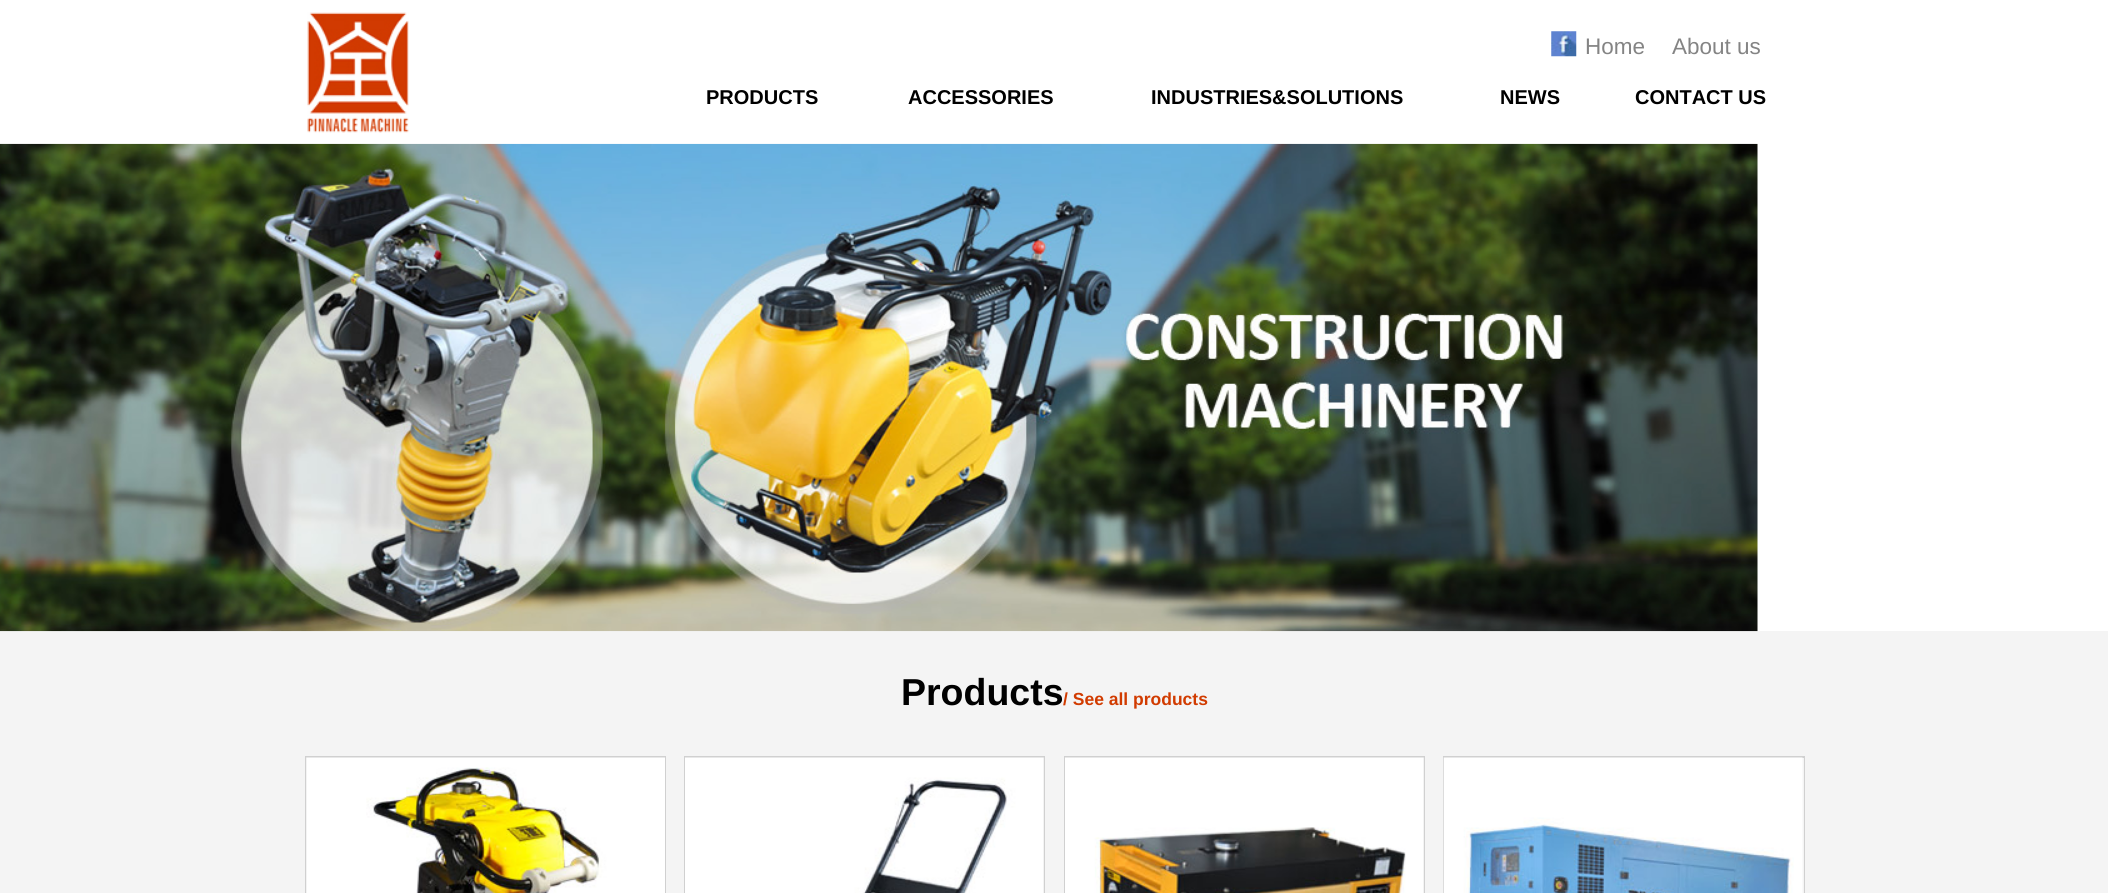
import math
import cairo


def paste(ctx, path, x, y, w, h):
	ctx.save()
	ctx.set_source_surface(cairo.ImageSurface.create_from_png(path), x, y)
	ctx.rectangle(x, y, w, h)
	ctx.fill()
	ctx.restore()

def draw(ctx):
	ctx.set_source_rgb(1, 1, 1)
	ctx.paint()
	paste(ctx, 'media/1.png', 307, 12, 102, 121)
	paste(ctx, 'media/2.png', 1551, 31, 26, 26)
	ctx.select_font_face('Liberation Sans')
	ctx.set_font_size(22.5)
	ctx.set_source_rgb(0.518, 0.518, 0.518)
	ctx.move_to(1585, 54)
	ctx.show_text('Home')
	ctx.move_to(1672, 54)
	ctx.show_text('About us')
	ctx.select_font_face('Liberation Sans', cairo.FONT_SLANT_NORMAL, cairo.FONT_WEIGHT_BOLD)
	ctx.set_font_size(20)
	ctx.set_source_rgb(0, 0, 0)
	for x, y, s in [
		(706, 104, 'PRODUCTS'),
		(908, 104, 'ACCESSORIES'),
		(1151, 104, 'INDUSTRIES&SOLUTIONS'),
		(1500, 104, 'NEWS'),
		(1635, 104, 'CONTACT US'),
	]:
		ctx.move_to(x, y)
		ctx.show_text(s)
	ctx.set_source_rgb(0.957, 0.957, 0.957)
	ctx.rectangle(0, 631, 2108, 262)
	ctx.fill()
	paste(ctx, 'media/3.png', 0, 143, 1758, 489)
	ctx.set_font_size(37.5)
	ctx.set_source_rgb(0, 0, 0)
	ctx.move_to(901, 705)
	ctx.show_text('Products')
	ctx.set_font_size(17.5)
	ctx.set_source_rgb(0.82, 0.231, 0)
	ctx.move_to(1063, 705)
	ctx.show_text('/ See all products')
	ctx.set_source_rgb(0.816, 0.816, 0.816)
	ctx.rectangle(305, 756, 361, 137)
	ctx.fill()
	paste(ctx, 'media/4.png', 306, 757, 359, 136)
	ctx.rectangle(684, 756, 361, 137)
	ctx.fill()
	paste(ctx, 'media/5.png', 685, 757, 359, 136)
	ctx.rectangle(1064, 756, 361, 137)
	ctx.fill()
	paste(ctx, 'media/6.png', 1065, 757, 359, 136)
	ctx.rectangle(1443, 756, 362, 137)
	ctx.fill()
	ctx.set_source_rgb(0.957, 0.957, 0.957)
	ctx.rectangle(1802, 758, 2, 135)
	ctx.fill()
	paste(ctx, 'media/7.png', 1443, 757, 360, 136)


surface = cairo.ImageSurface(cairo.FORMAT_RGB24, 2108, 893)
ctx = cairo.Context(surface)
options = cairo.FontOptions()
options.set_hint_metrics(cairo.HINT_METRICS_OFF)
options.set_hint_style(cairo.HINT_STYLE_NONE)
ctx.set_font_options(options)
ctx.set_miter_limit(4)
draw(ctx)
surface.write_to_png('image.png')
